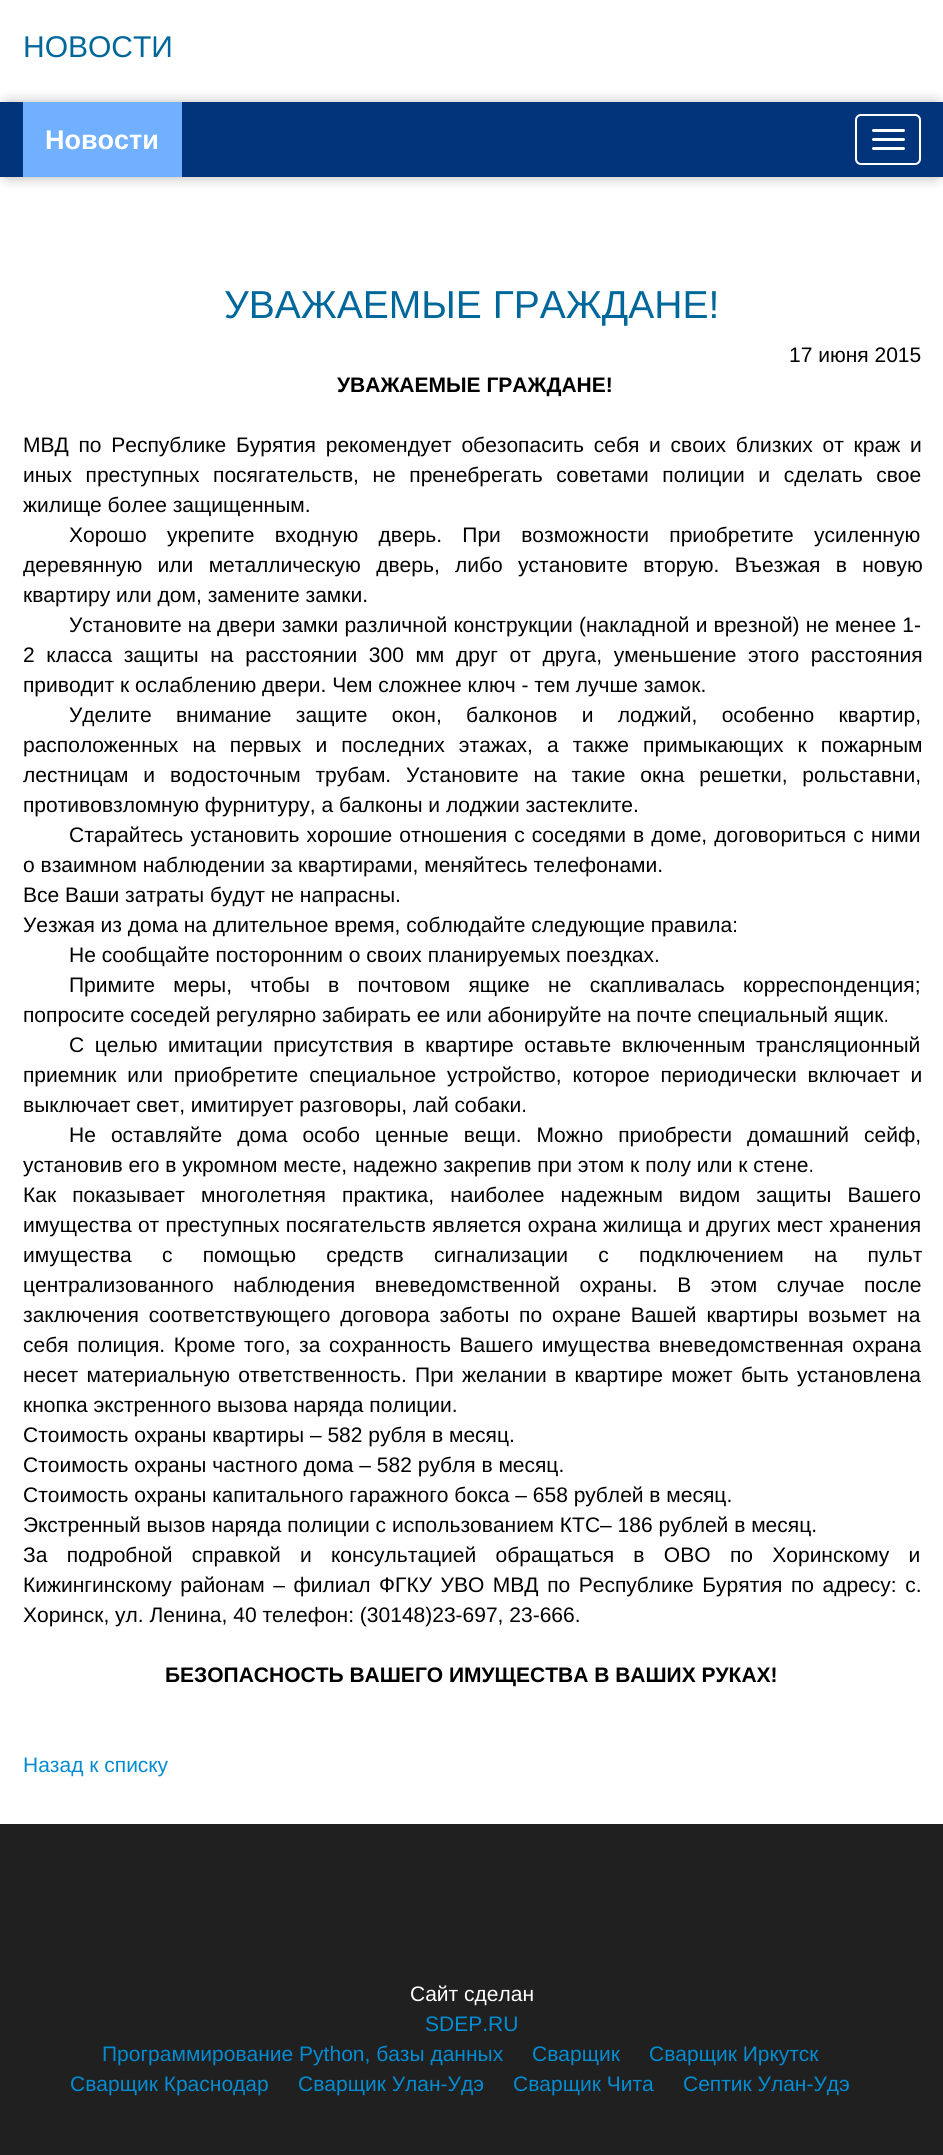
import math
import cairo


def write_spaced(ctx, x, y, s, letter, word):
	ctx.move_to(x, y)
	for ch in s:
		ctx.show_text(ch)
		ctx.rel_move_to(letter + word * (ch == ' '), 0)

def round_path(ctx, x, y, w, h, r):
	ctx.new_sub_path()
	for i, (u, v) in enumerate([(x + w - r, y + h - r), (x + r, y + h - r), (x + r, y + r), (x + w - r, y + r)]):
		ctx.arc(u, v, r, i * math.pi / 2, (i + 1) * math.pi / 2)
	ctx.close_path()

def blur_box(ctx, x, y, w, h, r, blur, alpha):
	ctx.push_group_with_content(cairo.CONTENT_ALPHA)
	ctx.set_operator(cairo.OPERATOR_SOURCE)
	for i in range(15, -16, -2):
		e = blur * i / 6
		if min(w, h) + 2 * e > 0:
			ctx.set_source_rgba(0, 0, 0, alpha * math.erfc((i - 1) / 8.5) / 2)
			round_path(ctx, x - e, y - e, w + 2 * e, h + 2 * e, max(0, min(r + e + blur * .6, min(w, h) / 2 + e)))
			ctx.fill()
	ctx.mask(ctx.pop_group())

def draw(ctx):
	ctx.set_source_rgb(1, 1, 1)
	ctx.paint()
	ctx.select_font_face('Liberation Sans')
	ctx.set_font_size(30)
	ctx.set_source_rgb(0, 0.404, 0.608)
	ctx.move_to(23, 57)
	ctx.show_text('НОВОСТИ')
	ctx.set_source_rgb(0, 0, 0)
	blur_box(ctx, 8, 110, 928, 60, 0, 9, 0.75)
	ctx.set_source_rgb(0.008, 0.204, 0.482)
	ctx.rectangle(0, 102, 943, 75)
	ctx.fill()
	ctx.set_source_rgb(0.443, 0.69, 1)
	ctx.rectangle(23, 102, 159, 75)
	ctx.fill()
	ctx.select_font_face('Liberation Sans', cairo.FONT_SLANT_NORMAL, cairo.FONT_WEIGHT_BOLD)
	ctx.set_font_size(27)
	ctx.set_source_rgb(1, 1, 1)
	ctx.move_to(45, 149)
	ctx.show_text('Новости')
	round_path(ctx, 856, 115, 64, 49, 5)
	ctx.stroke()
	round_path(ctx, 872, 129, 33, 3, 1.5)
	ctx.fill()
	round_path(ctx, 872, 138, 33, 3, 1.5)
	ctx.fill()
	round_path(ctx, 872, 147, 33, 3, 1.5)
	ctx.fill()
	ctx.select_font_face('Liberation Sans')
	ctx.set_font_size(39)
	ctx.set_source_rgb(0, 0.404, 0.608)
	ctx.move_to(224, 318)
	ctx.show_text('УВАЖАЕМЫЕ ГРАЖДАНЕ!')
	ctx.set_font_size(21)
	ctx.set_source_rgb(0, 0, 0)
	ctx.move_to(789, 362)
	ctx.show_text('17 июня 2015')
	ctx.select_font_face('Liberation Sans', cairo.FONT_SLANT_NORMAL, cairo.FONT_WEIGHT_BOLD)
	ctx.move_to(337, 392)
	ctx.show_text('УВАЖАЕМЫЕ ГРАЖДАНЕ!')
	ctx.select_font_face('Liberation Sans')
	write_spaced(ctx, 23, 452, 'МВД по Республике Бурятия рекомендует обезопасить себя и своих близких от краж и', 0, 3.9)
	write_spaced(ctx, 23, 482, 'иных преступных посягательств, не пренебрегать советами полиции и сделать свое', 0, 7.75)
	ctx.move_to(23, 512)
	ctx.show_text('жилище более защищенным.')
	write_spaced(ctx, 69, 542, 'Хорошо укрепите входную дверь. При возможности приобретите усиленную', 0, 14.5)
	write_spaced(ctx, 23, 572, 'деревянную или металлическую дверь, либо установите вторую. Въезжая в новую', 0, 9.5)
	ctx.move_to(23, 602)
	ctx.show_text('квартиру или дом, замените замки.')
	write_spaced(ctx, 69, 632, 'Установите на двери замки различной конструкции (накладной и врезной) не менее 1-', 0, 0.25)
	write_spaced(ctx, 23, 662, '2 класса защиты на расстоянии 300 мм друг от друга, уменьшение этого расстояния', 0, 5.75)
	ctx.move_to(23, 692)
	ctx.show_text('приводит к ослаблению двери. Чем сложнее ключ - тем лучше замок.')
	write_spaced(ctx, 69, 722, 'Уделите внимание защите окон, балконов и лоджий, особенно квартир,', 0, 18.5)
	write_spaced(ctx, 23, 752, 'расположенных на первых и последних этажах, а также примыкающих к пожарным', 0, 8.25)
	write_spaced(ctx, 23, 782, 'лестницам и водосточным трубам. Установите на такие окна решетки, рольставни,', 0, 9)
	ctx.move_to(23, 812)
	ctx.show_text('противовзломную фурнитуру, а балконы и лоджии застеклите.')
	write_spaced(ctx, 69, 842, 'Старайтесь установить хорошие отношения с соседями в доме, договориться с ними', 0, 1.25)
	for x, y, s in [
		(23, 872, 'о взаимном наблюдении за квартирами, меняйтесь телефонами.'),
		(23, 902, 'Все Ваши затраты будут не напрасны.'),
		(23, 932, 'Уезжая из дома на длительное время, соблюдайте следующие правила:'),
		(69, 962, 'Не сообщайте посторонним о своих планируемых поездках.'),
	]:
		ctx.move_to(x, y)
		ctx.show_text(s)
	write_spaced(ctx, 69, 992, 'Примите меры, чтобы в почтовом ящике не скапливалась корреспонденция;', 0, 12.5)
	ctx.move_to(23, 1022)
	ctx.show_text('попросите соседей регулярно забирать ее или абонируйте на почте специальный ящик.')
	write_spaced(ctx, 69, 1052, 'С целью имитации присутствия в квартире оставьте включенным трансляционный', 0, 4.75)
	write_spaced(ctx, 23, 1082, 'приемник или приобретите специальное устройство, которое периодически включает и', 0, 5)
	ctx.move_to(23, 1112)
	ctx.show_text('выключает свет, имитирует разговоры, лай собаки.')
	write_spaced(ctx, 69, 1142, 'Не оставляйте дома особо ценные вещи. Можно приобрести домашний сейф,', 0, 9.25)
	ctx.move_to(23, 1172)
	ctx.show_text('установив его в укромном месте, надежно закрепив при этом к полу или к стене.')
	write_spaced(ctx, 23, 1202, 'Как показывает многолетняя практика, наиболее надежным видом защиты Вашего', 0, 10.25)
	write_spaced(ctx, 23, 1232, 'имущества от преступных посягательств является охрана жилища и других мест хранения', 0, 0.5)
	write_spaced(ctx, 23, 1262, 'имущества с помощью средств сигнализации с подключением на пульт', 0, 24.5)
	write_spaced(ctx, 23, 1292, 'централизованного наблюдения вневедомственной охраны. В этом случае после', 0, 13.75)
	write_spaced(ctx, 23, 1322, 'заключения соответствующего договора заботы по охране Вашей квартиры возьмет на', 0, 4)
	write_spaced(ctx, 23, 1352, 'себя полиция. Кроме того, за сохранность Вашего имущества вневедомственная охрана', 0, 2.75)
	write_spaced(ctx, 23, 1382, 'несет материальную ответственность. При желании в квартире может быть установлена', 0, 2.5)
	for x, y, s in [
		(23, 1412, 'кнопка экстренного вызова наряда полиции.'),
		(23, 1442, 'Стоимость охраны квартиры – 582 рубля в месяц.'),
		(23, 1472, 'Стоимость охраны частного дома – 582 рубля в месяц.'),
		(23, 1502, 'Стоимость охраны капитального гаражного бокса – 658 рублей в месяц.'),
		(23, 1532, 'Экстренный вызов наряда полиции с использованием КТС– 186 рублей в месяц.'),
	]:
		ctx.move_to(x, y)
		ctx.show_text(s)
	write_spaced(ctx, 23, 1562, 'За подробной справкой и консультацией обращаться в ОВО по Хоринскому и', 0, 13.5)
	write_spaced(ctx, 23, 1592, 'Кижингинскому районам – филиал ФГКУ УВО МВД по Республике Бурятия по адресу: с.', 0, 2.75)
	ctx.move_to(23, 1622)
	ctx.show_text('Хоринск, ул. Ленина, 40 телефон: (30148)23-697, 23-666.')
	ctx.select_font_face('Liberation Sans', cairo.FONT_SLANT_NORMAL, cairo.FONT_WEIGHT_BOLD)
	ctx.move_to(165, 1682)
	ctx.show_text('БЕЗОПАСНОСТЬ ВАШЕГО ИМУЩЕСТВА В ВАШИХ РУКАХ!')
	ctx.select_font_face('Liberation Sans')
	ctx.set_source_rgb(0.012, 0.549, 0.824)
	ctx.move_to(23, 1772)
	ctx.show_text('Назад к списку')
	ctx.set_source_rgb(0.125, 0.125, 0.125)
	ctx.rectangle(0, 1824, 943, 331)
	ctx.fill()
	ctx.set_source_rgb(1, 1, 1)
	ctx.move_to(410, 2001)
	ctx.show_text('Сайт сделан')
	ctx.set_source_rgb(0.012, 0.549, 0.824)
	for x, y, s in [
		(425, 2031, 'SDEP.RU'),
		(102, 2061, 'Программирование Python, базы данных'),
		(532, 2061, 'Сварщик'),
		(649, 2061, 'Сварщик Иркутск'),
		(70, 2091, 'Сварщик Краснодар'),
		(298, 2091, 'Сварщик Улан-Удэ'),
		(513, 2091, 'Сварщик Чита'),
		(683, 2091, 'Септик Улан-Удэ'),
	]:
		ctx.move_to(x, y)
		ctx.show_text(s)


surface = cairo.ImageSurface(cairo.FORMAT_RGB24, 943, 2155)
ctx = cairo.Context(surface)
options = cairo.FontOptions()
options.set_hint_metrics(cairo.HINT_METRICS_OFF)
options.set_hint_style(cairo.HINT_STYLE_NONE)
ctx.set_font_options(options)
ctx.set_miter_limit(4)
draw(ctx)
surface.write_to_png('image.png')
